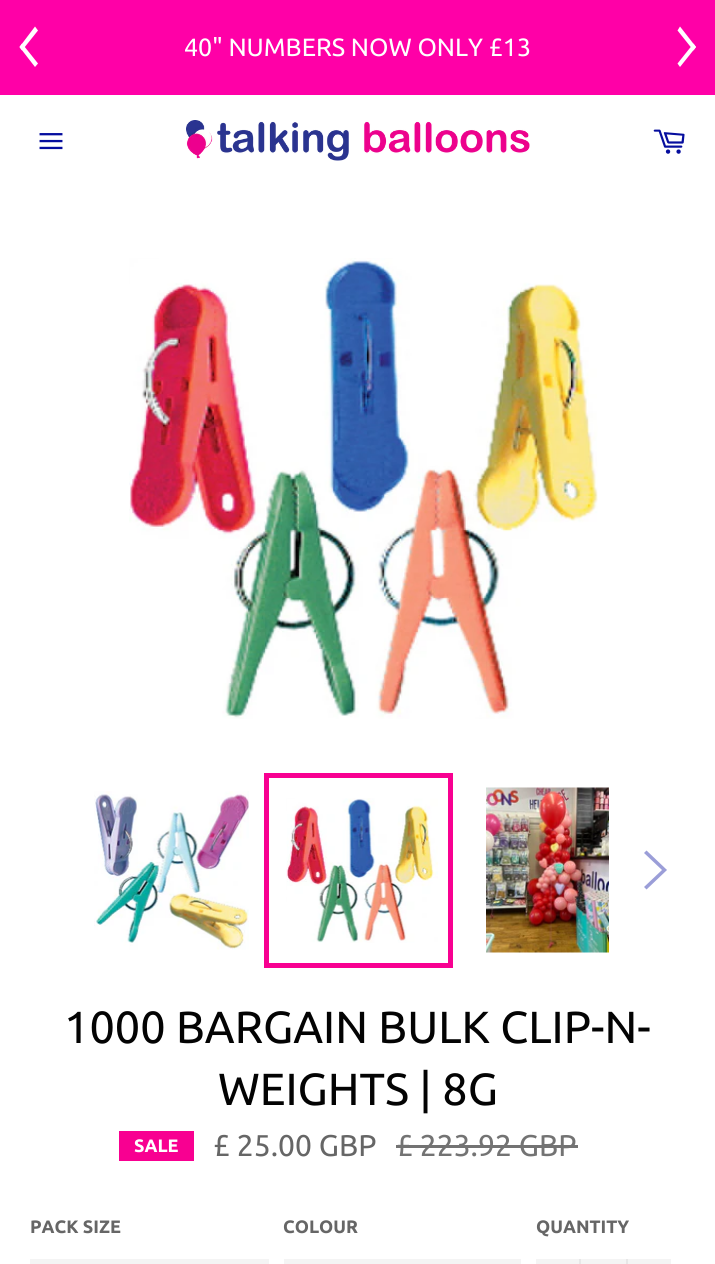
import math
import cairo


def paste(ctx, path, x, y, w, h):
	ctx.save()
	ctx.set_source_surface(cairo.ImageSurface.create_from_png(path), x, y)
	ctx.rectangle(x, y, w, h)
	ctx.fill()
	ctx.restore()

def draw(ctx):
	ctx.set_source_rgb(1, 1, 1)
	ctx.paint()
	ctx.set_source_rgb(1, 0, 0.655)
	ctx.rectangle(0, 0, 715, 95)
	ctx.fill()
	ctx.set_source_rgb(1, 1, 1)
	ctx.new_path()
	ctx.move_to(19.5, 47)
	ctx.line_to(35, 26.5)
	ctx.line_to(38, 30.5)
	ctx.line_to(22, 50.5)
	ctx.close_path()
	ctx.fill()
	ctx.new_path()
	ctx.move_to(19.5, 47)
	ctx.line_to(22, 43.5)
	ctx.line_to(38, 63.5)
	ctx.line_to(35, 67)
	ctx.close_path()
	ctx.fill()
	ctx.select_font_face('Ubuntu')
	ctx.set_font_size(25)
	ctx.move_to(184, 56)
	ctx.show_text('40" NUMBERS NOW ONLY £13')
	ctx.new_path()
	ctx.move_to(696, 47)
	ctx.line_to(680, 67)
	ctx.line_to(677.5, 63.5)
	ctx.line_to(693.5, 43.5)
	ctx.close_path()
	ctx.fill()
	ctx.new_path()
	ctx.move_to(696, 47)
	ctx.line_to(693.5, 50.5)
	ctx.line_to(677.5, 30.5)
	ctx.line_to(680, 26.5)
	ctx.close_path()
	ctx.fill()
	paste(ctx, 'media/1.png', 39, 133, 24, 17)
	paste(ctx, 'media/2.png', 186, 120, 344, 41)
	paste(ctx, 'media/3.png', 653, 129, 32, 25)
	paste(ctx, 'media/4.png', 129, 258, 469, 461)
	paste(ctx, 'media/5.png', 94, 791, 155, 159)
	paste(ctx, 'media/6.png', 286, 798, 152, 145)
	ctx.rectangle(266.5, 775.5, 184, 190)
	ctx.set_source_rgb(0.969, 0, 0.569)
	ctx.set_line_width(5)
	ctx.stroke()
	paste(ctx, 'media/7.png', 486, 787, 123, 166)
	ctx.set_source_rgb(0.608, 0.62, 0.847)
	ctx.new_path()
	ctx.move_to(644, 853)
	ctx.line_to(646.5, 850.5)
	ctx.line_to(667, 870)
	ctx.line_to(646.5, 889.5)
	ctx.line_to(644, 887)
	ctx.line_to(662, 870)
	ctx.close_path()
	ctx.fill()
	ctx.set_font_size(45)
	ctx.set_source_rgb(0.012, 0.012, 0.012)
	ctx.move_to(64, 1043)
	ctx.show_text('1000 BARGAIN BULK CLIP-N-')
	ctx.move_to(218, 1105)
	ctx.show_text('WEIGHTS | 8G')
	ctx.set_source_rgb(0.969, 0, 0.569)
	ctx.rectangle(119, 1131, 75, 30)
	ctx.fill()
	ctx.select_font_face('Ubuntu', cairo.FONT_SLANT_NORMAL, cairo.FONT_WEIGHT_BOLD)
	ctx.set_font_size(18)
	ctx.set_source_rgb(1, 1, 1)
	ctx.move_to(134, 1152)
	ctx.show_text('SALE')
	ctx.select_font_face('Ubuntu')
	ctx.set_font_size(30)
	ctx.set_source_rgb(0.4, 0.4, 0.4)
	ctx.move_to(213, 1156)
	ctx.show_text('£ 25.00 GBP')
	ctx.set_source_rgb(0.451, 0.451, 0.451)
	ctx.move_to(396, 1156)
	ctx.show_text('£ 223.92 GBP')
	ctx.rectangle(396, 1145, 182, 3)
	ctx.fill()
	ctx.select_font_face('Ubuntu', cairo.FONT_SLANT_NORMAL, cairo.FONT_WEIGHT_BOLD)
	ctx.set_font_size(18)
	ctx.set_source_rgb(0.4, 0.4, 0.4)
	ctx.move_to(30, 1233)
	ctx.show_text('PACK SIZE')
	ctx.set_source_rgb(0.957, 0.957, 0.957)
	ctx.rectangle(30, 1259, 239, 5)
	ctx.fill()
	ctx.set_source_rgb(0.4, 0.4, 0.4)
	ctx.move_to(283, 1233)
	ctx.show_text('COLOUR')
	ctx.set_source_rgb(0.957, 0.957, 0.957)
	ctx.rectangle(284, 1259, 237, 5)
	ctx.fill()
	ctx.set_source_rgb(0.4, 0.4, 0.4)
	ctx.move_to(536, 1233)
	ctx.show_text('QUANTITY')
	ctx.set_source_rgb(0.957, 0.957, 0.957)
	ctx.rectangle(536, 1259, 135, 5)
	ctx.fill()
	ctx.set_source_rgb(0.906, 0.906, 0.906)
	ctx.rectangle(579, 1259, 2, 5)
	ctx.rectangle(626, 1259, 2, 5)
	ctx.fill()


surface = cairo.ImageSurface(cairo.FORMAT_RGB24, 715, 1264)
ctx = cairo.Context(surface)
options = cairo.FontOptions()
options.set_hint_metrics(cairo.HINT_METRICS_OFF)
options.set_hint_style(cairo.HINT_STYLE_NONE)
ctx.set_font_options(options)
ctx.set_miter_limit(4)
draw(ctx)
surface.write_to_png('image.png')
